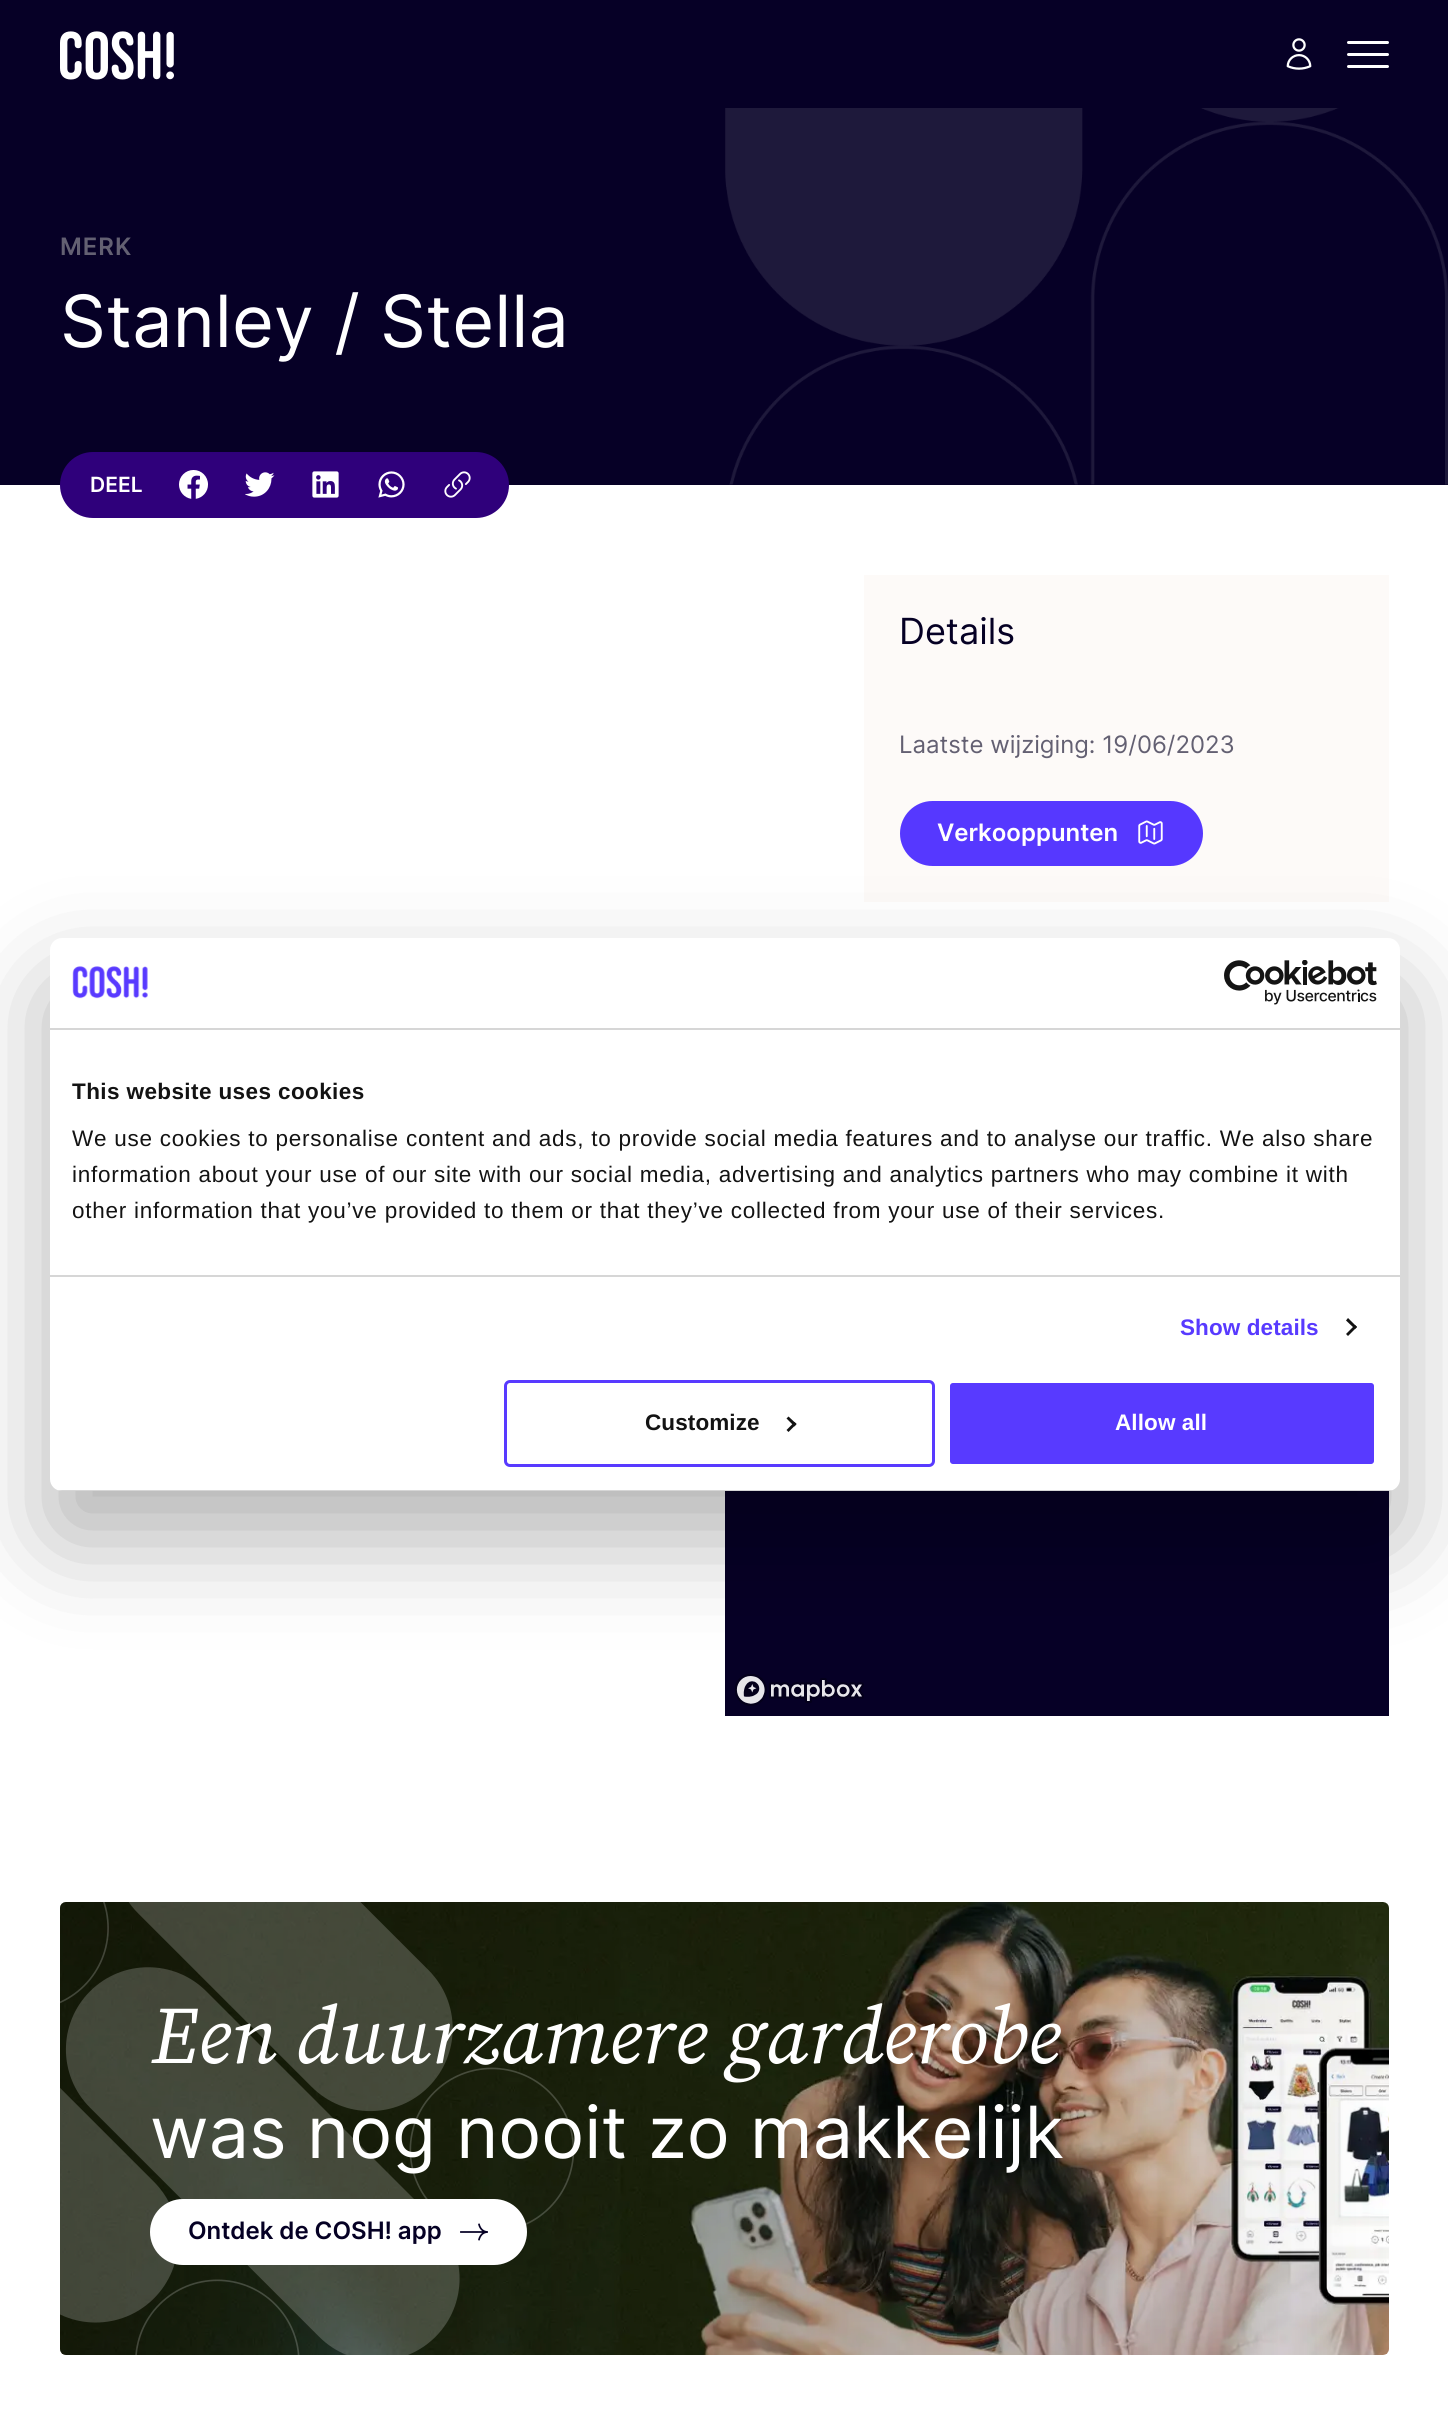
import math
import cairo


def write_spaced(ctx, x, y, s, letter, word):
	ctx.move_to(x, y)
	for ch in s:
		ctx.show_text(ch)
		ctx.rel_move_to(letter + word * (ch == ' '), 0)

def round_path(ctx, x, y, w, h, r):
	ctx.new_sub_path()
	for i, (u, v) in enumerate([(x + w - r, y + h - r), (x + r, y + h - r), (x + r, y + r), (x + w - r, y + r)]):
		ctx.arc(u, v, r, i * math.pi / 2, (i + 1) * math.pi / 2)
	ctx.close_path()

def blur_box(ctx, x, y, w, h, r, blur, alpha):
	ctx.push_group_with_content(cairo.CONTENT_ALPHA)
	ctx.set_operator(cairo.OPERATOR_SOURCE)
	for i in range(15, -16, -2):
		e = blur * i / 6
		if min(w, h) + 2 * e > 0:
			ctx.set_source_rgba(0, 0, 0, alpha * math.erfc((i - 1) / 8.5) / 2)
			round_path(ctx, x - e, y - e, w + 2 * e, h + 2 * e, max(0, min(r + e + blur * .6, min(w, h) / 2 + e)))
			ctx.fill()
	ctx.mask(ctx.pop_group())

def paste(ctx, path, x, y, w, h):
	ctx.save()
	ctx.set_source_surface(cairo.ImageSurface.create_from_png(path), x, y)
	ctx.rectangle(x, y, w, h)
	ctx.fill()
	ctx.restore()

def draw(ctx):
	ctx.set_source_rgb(1, 1, 1)
	ctx.paint()
	ctx.set_source_rgb(0.024, 0, 0.149)
	ctx.rectangle(0, 0, 1448, 485)
	ctx.fill()
	paste(ctx, 'media/1.png', 60, 31, 114, 49)
	paste(ctx, 'media/2.png', 1286, 38, 26, 32)
	ctx.set_source_rgb(1, 1, 1)
	round_path(ctx, 1347, 53, 42, 3, 1.5)
	ctx.fill()
	round_path(ctx, 1347, 41, 42, 3, 1.5)
	ctx.fill()
	round_path(ctx, 1347, 65, 42, 3, 1.5)
	ctx.fill()
	paste(ctx, 'media/3.png', 725, 108, 723, 377)
	ctx.select_font_face('Inter SemiBold')
	ctx.set_font_size(24)
	ctx.set_source_rgb(0.388, 0.376, 0.447)
	write_spaced(ctx, 60, 255, 'MERK', 1, 0)
	ctx.select_font_face('Inter')
	ctx.set_font_size(72)
	ctx.set_source_rgb(1, 1, 1)
	ctx.move_to(60, 347)
	ctx.show_text('Stanley / Stella')
	ctx.set_source_rgb(0.184, 0, 0.482)
	round_path(ctx, 60, 452, 449, 66, 33)
	ctx.fill()
	ctx.select_font_face('Inter SemiBold')
	ctx.set_font_size(21)
	ctx.set_source_rgb(1, 1, 1)
	ctx.move_to(90, 492)
	ctx.show_text('DEEL')
	paste(ctx, 'media/4.png', 179, 470, 29, 29)
	paste(ctx, 'media/5.png', 245, 472, 30, 25)
	paste(ctx, 'media/6.png', 312, 471, 27, 27)
	paste(ctx, 'media/7.png', 378, 471, 27, 27)
	paste(ctx, 'media/8.png', 444, 471, 27, 27)
	ctx.set_source_rgb(0.992, 0.98, 0.969)
	ctx.rectangle(864, 575, 525, 327)
	ctx.fill()
	ctx.select_font_face('Inter')
	ctx.set_font_size(36)
	ctx.set_source_rgb(0.02, 0, 0.141)
	ctx.move_to(899, 644)
	ctx.show_text('Details')
	ctx.set_font_size(24)
	ctx.set_source_rgb(0.388, 0.376, 0.447)
	ctx.move_to(899, 753)
	ctx.show_text('Laatste wijziging: 19/06/2023')
	ctx.set_source_rgb(0.337, 0.22, 1)
	round_path(ctx, 901, 802, 301, 63, 31.5)
	ctx.fill_preserve()
	ctx.stroke()
	ctx.select_font_face('Inter SemiBold')
	ctx.set_source_rgb(1, 1, 1)
	ctx.move_to(937, 841)
	ctx.show_text('Verkooppunten')
	paste(ctx, 'media/9.png', 1138, 820, 25, 25)
	ctx.set_source_rgb(0.024, 0, 0.149)
	ctx.rectangle(725, 1490, 664, 226)
	ctx.fill()
	paste(ctx, 'media/10.png', 735, 1674, 129, 32)
	paste(ctx, 'media/11.png', 60, 1902, 1329, 453)
	gradient = cairo.LinearGradient(60, 2129, 1389, 2129)
	gradient.add_color_stop_rgba(0, 0, 0, 0, 0.4)
	gradient.add_color_stop_rgba(1, 0, 0, 0, 0)
	ctx.set_source(gradient)
	round_path(ctx, 60, 1902, 1329, 453, 6)
	ctx.fill()
	paste(ctx, 'media/12.png', 60, 1902, 515, 453)
	ctx.select_font_face('Source Serif Pro', cairo.FONT_SLANT_ITALIC)
	ctx.set_font_size(81)
	ctx.set_source_rgb(1, 1, 1)
	ctx.move_to(150, 2063)
	ctx.show_text('Een duurzamere garderobe')
	ctx.select_font_face('Inter')
	ctx.set_font_size(72)
	ctx.move_to(150, 2158)
	ctx.show_text('was nog nooit zo makkelijk')
	round_path(ctx, 151, 2200, 375, 64, 32)
	ctx.fill_preserve()
	ctx.stroke()
	ctx.select_font_face('Inter SemiBold')
	ctx.set_font_size(24)
	ctx.set_source_rgb(0.02, 0, 0.141)
	ctx.move_to(188, 2239)
	ctx.show_text('Ontdek de COSH! app')
	paste(ctx, 'media/13.png', 460, 2223, 28, 18)
	ctx.set_source_rgb(0, 0, 0)
	blur_box(ctx, 50, 986, 1350, 553, 12, 51, 0.3)
	ctx.set_source_rgb(1, 1, 1)
	round_path(ctx, 50, 938, 1350, 553, 12)
	ctx.fill()
	ctx.set_source_rgb(0.839, 0.839, 0.839)
	ctx.rectangle(50, 1028, 1350, 2)
	ctx.fill()
	paste(ctx, 'media/14.png', 72, 966, 76, 33)
	paste(ctx, 'media/15.png', 1224, 960, 153, 45)
	ctx.rectangle(50, 1275, 1350, 2)
	ctx.fill()
	ctx.select_font_face('Liberation Sans', cairo.FONT_SLANT_NORMAL, cairo.FONT_WEIGHT_BOLD)
	ctx.set_font_size(22.5)
	ctx.set_source_rgb(0.078, 0.078, 0.078)
	write_spaced(ctx, 72, 1099, 'This website uses cookies', 0.4, 0)
	ctx.select_font_face('Liberation Sans')
	for x, y, s in [
		(72, 1146, 'We use cookies to personalise content and ads, to provide social media features and to analyse our traffic. We also share'),
		(72, 1182, 'information about your use of our site with our social media, advertising and analytics partners who may combine it with'),
		(72, 1218, 'other information that you’ve provided to them or that they’ve collected from your use of their services.'),
	]:
		write_spaced(ctx, x, y, s, 0.75, 0)
	ctx.select_font_face('Liberation Sans', cairo.FONT_SLANT_NORMAL, cairo.FONT_WEIGHT_BOLD)
	ctx.set_source_rgb(0.345, 0.227, 1)
	write_spaced(ctx, 1180, 1335, 'Show details', 0.1, 0)
	ctx.set_source_rgb(0.078, 0.078, 0.078)
	ctx.new_path()
	ctx.move_to(1348, 1318)
	ctx.line_to(1357, 1327)
	ctx.line_to(1355, 1329)
	ctx.line_to(1346, 1320.5)
	ctx.close_path()
	ctx.fill()
	ctx.new_path()
	ctx.move_to(1355, 1325)
	ctx.line_to(1357, 1327)
	ctx.line_to(1348, 1336)
	ctx.line_to(1346, 1334)
	ctx.close_path()
	ctx.fill()
	ctx.save()
	round_path(ctx, 50, 938, 1350, 553, 12)
	ctx.clip()
	ctx.set_source_rgb(0.839, 0.839, 0.839)
	ctx.rectangle(50, 1490, 1350, 1)
	ctx.fill()
	ctx.restore()
	round_path(ctx, 505.5, 1381.5, 428, 84, 4.5)
	ctx.set_source_rgb(0.345, 0.227, 1)
	ctx.set_line_width(3)
	ctx.stroke()
	ctx.set_source_rgb(0.078, 0.078, 0.078)
	write_spaced(ctx, 645, 1430, 'Customize', 0.1, 0)
	ctx.new_path()
	ctx.move_to(788.5, 1416.5)
	ctx.line_to(796.5, 1424)
	ctx.line_to(794.5, 1426.5)
	ctx.line_to(786.5, 1418.5)
	ctx.close_path()
	ctx.fill()
	ctx.new_path()
	ctx.move_to(794.5, 1422)
	ctx.line_to(796.5, 1424)
	ctx.line_to(788.5, 1432)
	ctx.line_to(786.5, 1430)
	ctx.close_path()
	ctx.fill()
	ctx.set_source_rgb(0.345, 0.227, 1)
	round_path(ctx, 948.5, 1381.5, 427, 84, 4.5)
	ctx.fill_preserve()
	ctx.set_source_rgb(1, 1, 1)
	ctx.stroke()
	write_spaced(ctx, 1115, 1430, 'Allow all', 0.1, 0)


surface = cairo.ImageSurface(cairo.FORMAT_RGB24, 1448, 2427)
ctx = cairo.Context(surface)
options = cairo.FontOptions()
options.set_hint_metrics(cairo.HINT_METRICS_OFF)
options.set_hint_style(cairo.HINT_STYLE_NONE)
ctx.set_font_options(options)
ctx.set_miter_limit(4)
draw(ctx)
surface.write_to_png('image.png')
